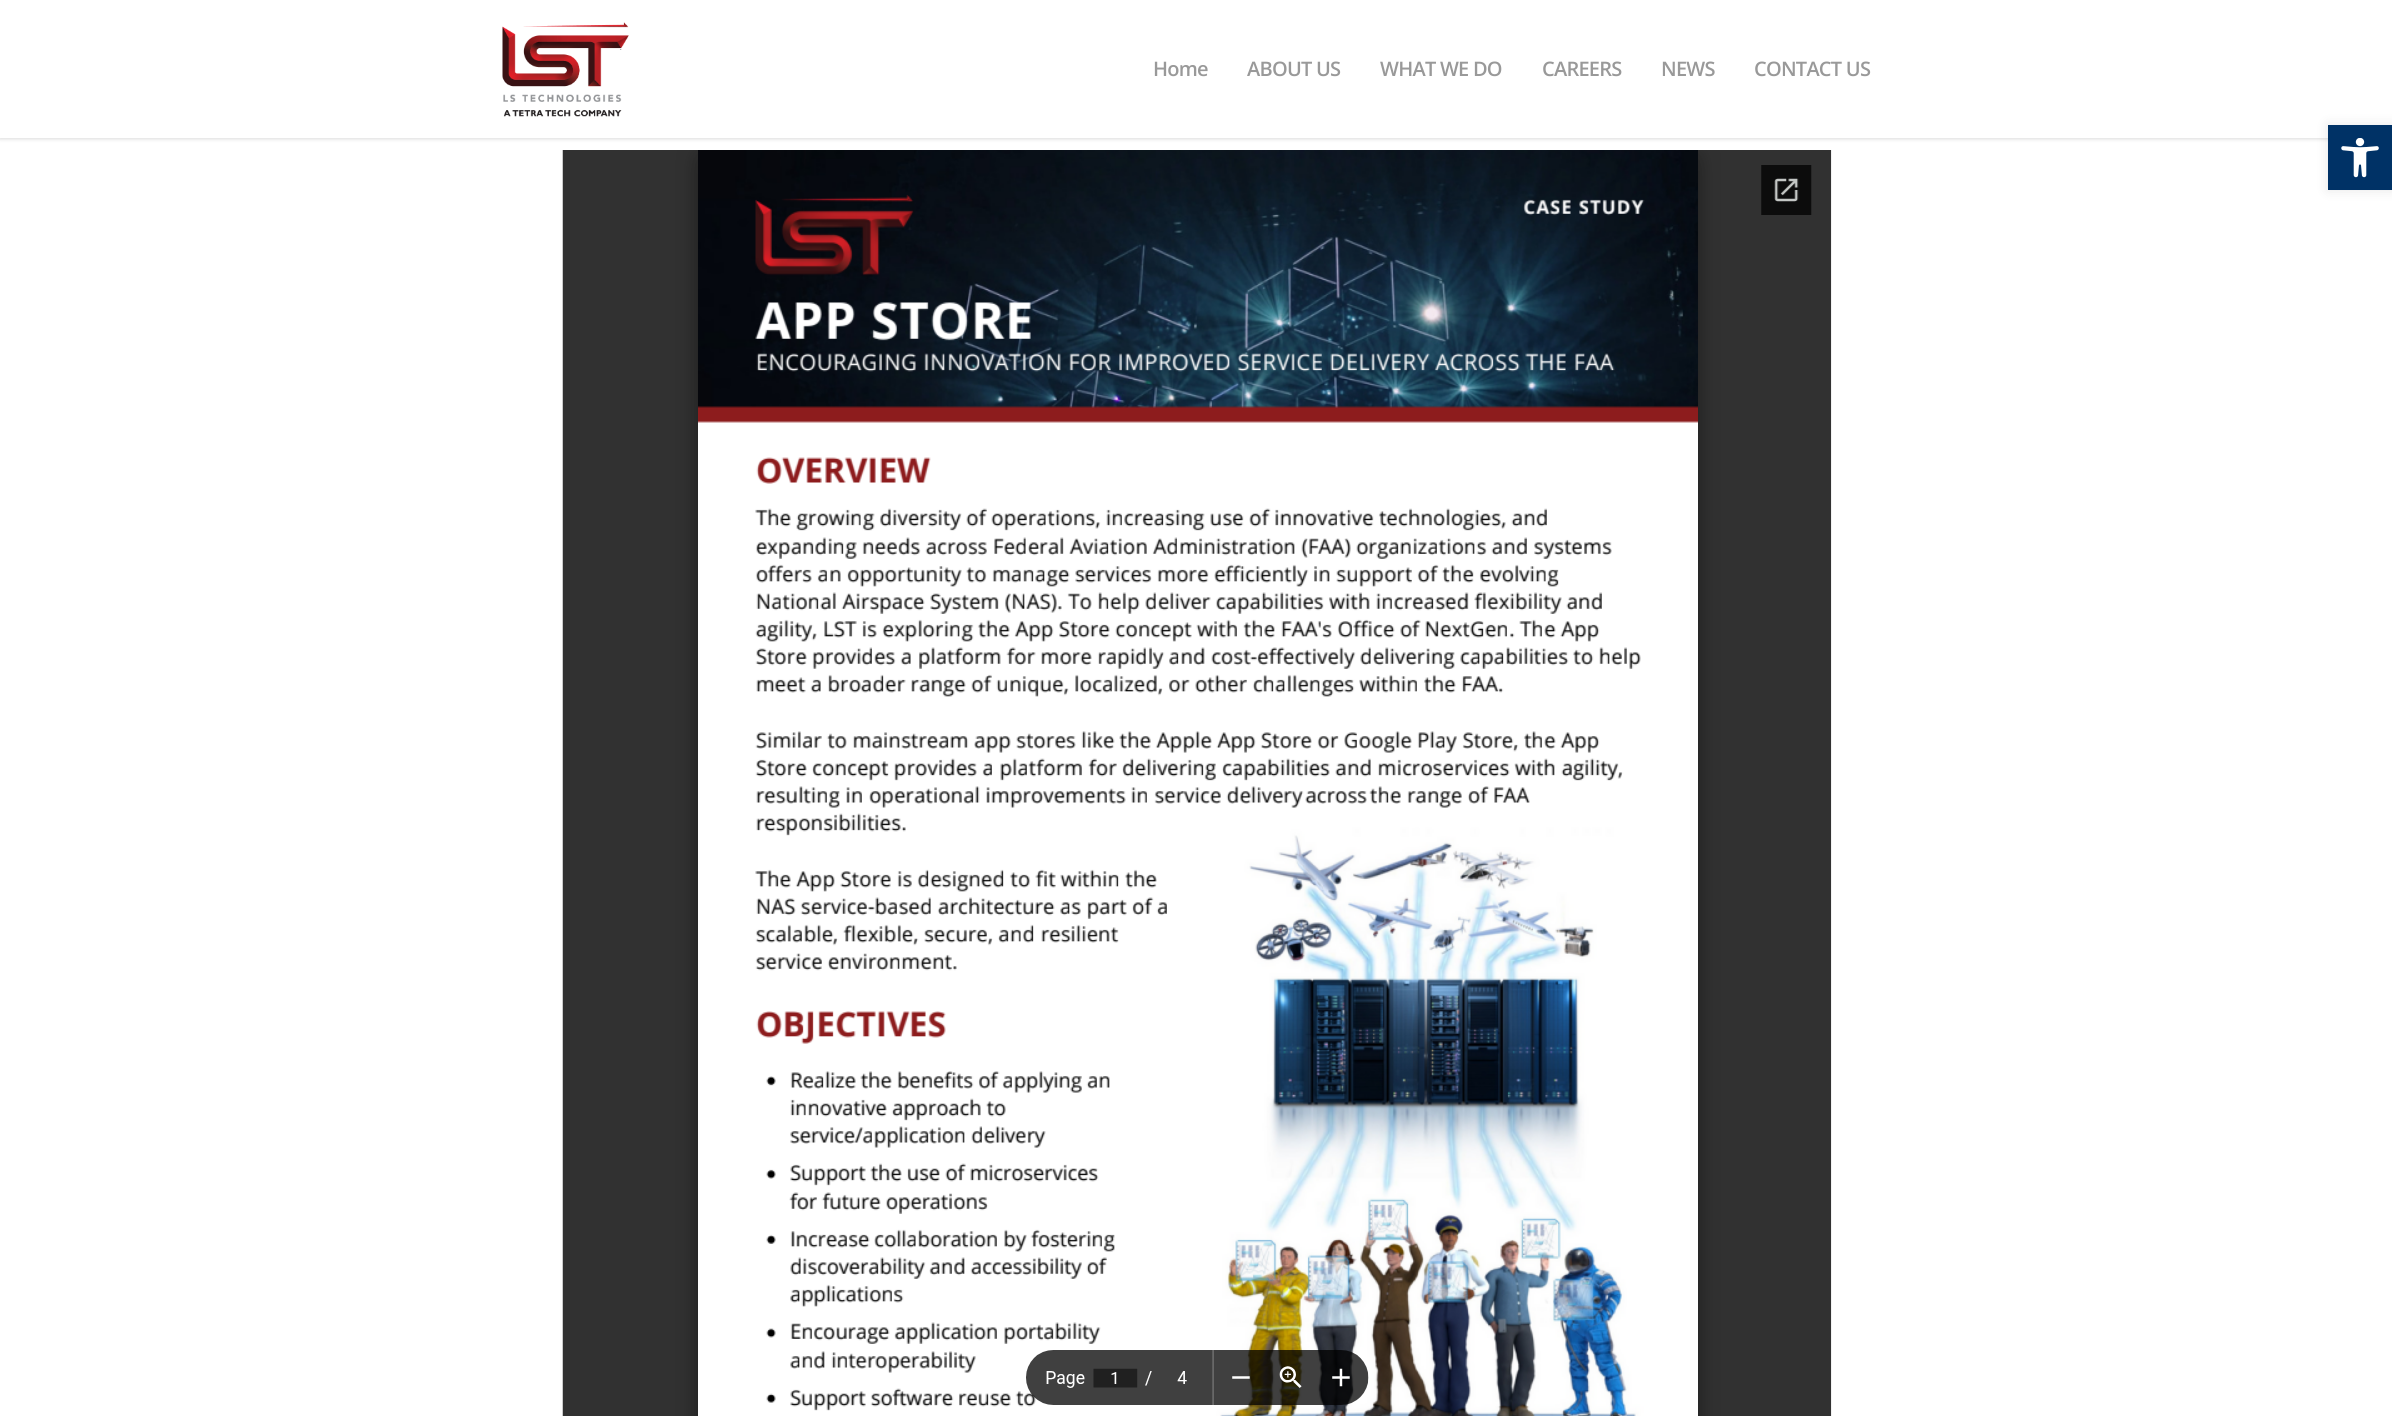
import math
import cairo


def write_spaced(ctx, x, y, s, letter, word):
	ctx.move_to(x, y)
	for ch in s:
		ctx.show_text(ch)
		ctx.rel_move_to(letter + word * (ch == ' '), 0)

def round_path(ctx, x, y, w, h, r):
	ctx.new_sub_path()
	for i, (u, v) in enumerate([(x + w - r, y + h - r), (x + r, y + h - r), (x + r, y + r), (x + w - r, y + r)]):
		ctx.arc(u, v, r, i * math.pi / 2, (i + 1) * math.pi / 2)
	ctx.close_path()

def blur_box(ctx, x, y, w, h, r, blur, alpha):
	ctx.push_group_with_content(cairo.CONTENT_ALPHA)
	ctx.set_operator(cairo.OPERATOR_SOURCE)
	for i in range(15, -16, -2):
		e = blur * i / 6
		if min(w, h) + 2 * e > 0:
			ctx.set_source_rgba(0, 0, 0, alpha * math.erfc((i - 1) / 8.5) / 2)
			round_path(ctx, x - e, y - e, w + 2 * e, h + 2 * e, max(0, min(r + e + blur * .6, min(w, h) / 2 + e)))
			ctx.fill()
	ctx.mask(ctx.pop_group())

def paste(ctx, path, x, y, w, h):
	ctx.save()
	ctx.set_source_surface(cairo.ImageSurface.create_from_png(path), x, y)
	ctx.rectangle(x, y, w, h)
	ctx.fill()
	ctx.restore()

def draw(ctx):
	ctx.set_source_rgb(1, 1, 1)
	ctx.paint()
	ctx.save()
	ctx.set_fill_rule(cairo.FILL_RULE_EVEN_ODD)
	ctx.new_path()
	ctx.move_to(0, 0)
	ctx.line_to(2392, 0)
	ctx.line_to(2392, 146)
	ctx.line_to(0, 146)
	ctx.close_path()
	ctx.move_to(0, 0)
	ctx.line_to(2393, 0)
	ctx.line_to(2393, 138)
	ctx.line_to(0, 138)
	ctx.close_path()
	ctx.clip()
	ctx.set_source_rgb(0, 0, 0)
	blur_box(ctx, 0, 1, 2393, 138, 0, 2, 0.15)
	ctx.restore()
	ctx.set_source_rgba(1, 1, 1, 0.3)
	ctx.rectangle(0, 137, 2392, 1)
	ctx.fill()
	paste(ctx, 'media/1.png', 502, 22, 127, 95)
	ctx.select_font_face('Open Sans SemiBold')
	ctx.set_font_size(20)
	ctx.set_source_rgb(0.6, 0.6, 0.6)
	for x, y, s in [
		(1153, 76, 'Home'),
		(1247, 76, 'ABOUT US'),
		(1380, 76, 'WHAT WE DO'),
		(1542, 76, 'CAREERS'),
		(1661, 76, 'NEWS'),
		(1754, 76, 'CONTACT US'),
	]:
		write_spaced(ctx, x, y, s, -0.75, 0)
	paste(ctx, 'media/2.png', 562, 150, 1270, 1266)
	ctx.set_source_rgb(0, 0, 0)
	blur_box(ctx, 2328, 125, 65, 65, 0, 6, 0.1)
	ctx.set_source_rgb(0, 0.196, 0.4)
	ctx.rectangle(2328, 125, 64, 65)
	ctx.fill()
	paste(ctx, 'media/3.png', 2341, 138, 38, 40)


surface = cairo.ImageSurface(cairo.FORMAT_RGB24, 2392, 1416)
ctx = cairo.Context(surface)
options = cairo.FontOptions()
options.set_hint_metrics(cairo.HINT_METRICS_OFF)
options.set_hint_style(cairo.HINT_STYLE_NONE)
ctx.set_font_options(options)
ctx.set_miter_limit(4)
draw(ctx)
surface.write_to_png('image.png')
